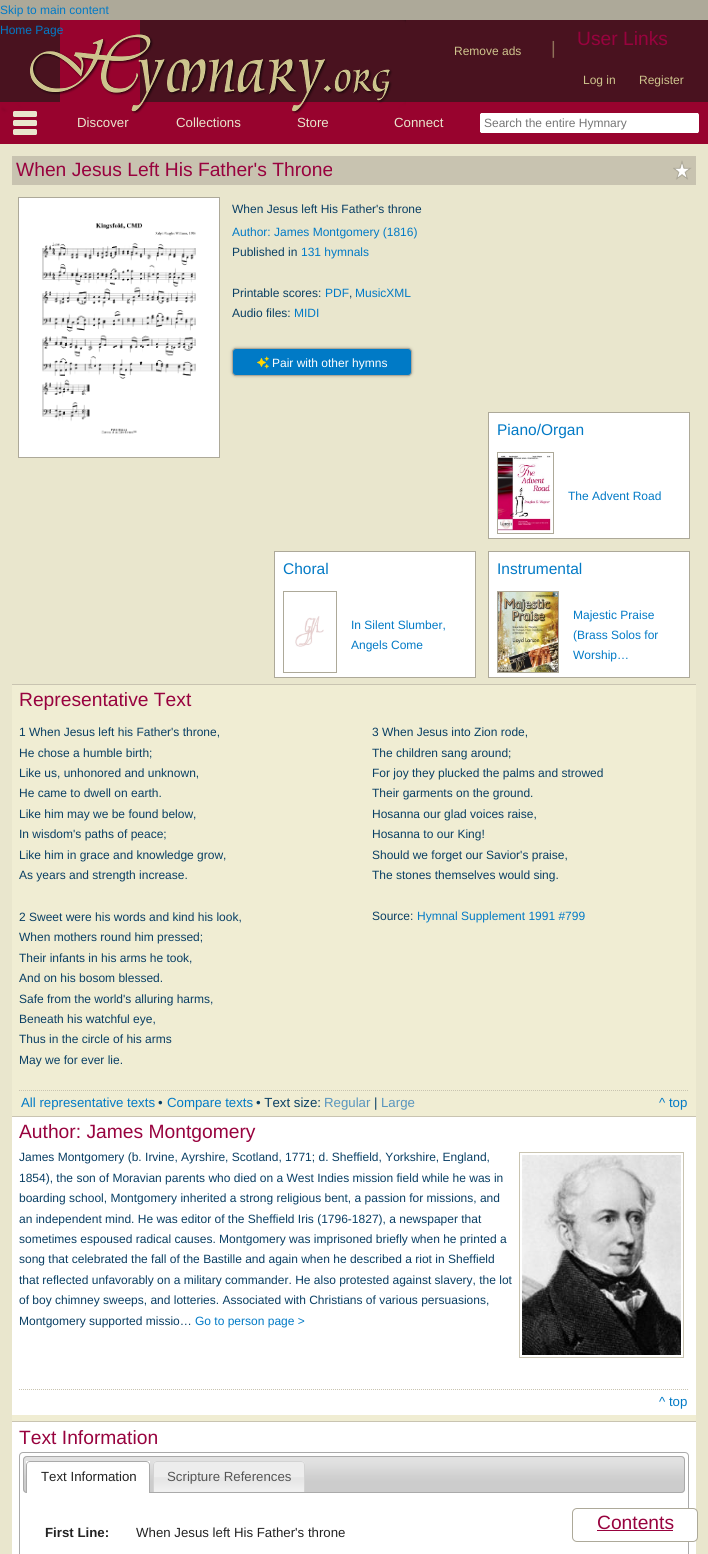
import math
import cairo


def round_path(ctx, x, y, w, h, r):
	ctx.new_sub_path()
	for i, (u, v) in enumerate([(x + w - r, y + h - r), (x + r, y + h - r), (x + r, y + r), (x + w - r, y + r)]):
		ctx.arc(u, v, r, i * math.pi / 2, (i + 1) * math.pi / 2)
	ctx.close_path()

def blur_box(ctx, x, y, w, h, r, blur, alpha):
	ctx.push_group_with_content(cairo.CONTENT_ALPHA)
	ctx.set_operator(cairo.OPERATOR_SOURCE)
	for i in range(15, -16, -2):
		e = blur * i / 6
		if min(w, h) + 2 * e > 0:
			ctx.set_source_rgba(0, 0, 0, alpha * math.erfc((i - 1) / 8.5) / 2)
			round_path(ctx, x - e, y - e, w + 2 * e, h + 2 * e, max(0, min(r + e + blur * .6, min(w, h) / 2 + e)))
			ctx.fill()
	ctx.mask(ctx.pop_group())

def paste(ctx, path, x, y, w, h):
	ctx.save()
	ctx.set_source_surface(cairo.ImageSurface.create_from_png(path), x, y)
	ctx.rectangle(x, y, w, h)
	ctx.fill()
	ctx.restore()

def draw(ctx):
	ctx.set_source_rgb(0.678, 0.663, 0.6)
	ctx.paint()
	ctx.select_font_face('Liberation Sans')
	ctx.set_font_size(12)
	ctx.set_source_rgb(0.008, 0.478, 0.776)
	ctx.move_to(0, 14)
	ctx.show_text('Skip to main content')
	ctx.set_source_rgb(0.286, 0.071, 0.122)
	ctx.rectangle(0, 20, 708, 82)
	ctx.fill()
	ctx.set_source_rgb(0.596, 0.012, 0.18)
	ctx.rectangle(60, 20, 80, 82)
	ctx.rectangle(0, 102, 708, 42)
	ctx.fill()
	paste(ctx, 'media/1.png', 1, 20, 405, 94)
	ctx.set_source_rgb(0.008, 0.478, 0.776)
	ctx.move_to(0, 34)
	ctx.show_text('Home Page')
	ctx.set_source_rgb(0.808, 0.769, 0.553)
	ctx.move_to(454, 55)
	ctx.show_text('Remove ads')
	ctx.set_font_size(18)
	ctx.set_source_rgb(0.565, 0.443, 0.349)
	ctx.move_to(551, 54)
	ctx.show_text('|')
	ctx.set_font_size(19.25)
	ctx.set_source_rgb(0.596, 0.008, 0.243)
	ctx.move_to(577, 45)
	ctx.show_text('User Links')
	ctx.set_font_size(12)
	ctx.set_source_rgb(0.808, 0.769, 0.553)
	ctx.move_to(583, 84)
	ctx.show_text('Log in')
	ctx.move_to(639, 84)
	ctx.show_text('Register')
	paste(ctx, 'media/2.png', 13, 111, 24, 24)
	ctx.set_font_size(13.25)
	ctx.set_source_rgb(0.914, 0.902, 0.804)
	for x, y, s in [
		(77, 127, 'Discover'),
		(176, 127, 'Collections'),
		(297, 127, 'Store'),
		(394, 127, 'Connect'),
	]:
		ctx.move_to(x, y)
		ctx.show_text(s)
	ctx.set_source_rgb(1, 1, 1)
	round_path(ctx, 480, 113, 219, 20, 2)
	ctx.fill()
	ctx.rectangle(481, 113, 217, 1)
	ctx.rectangle(481, 132, 217, 1)
	ctx.rectangle(480, 114, 1, 18)
	ctx.fill()
	ctx.set_font_size(12)
	ctx.set_source_rgb(0.459, 0.459, 0.459)
	ctx.move_to(484, 127)
	ctx.show_text('Search the entire Hymnary')
	ctx.set_source_rgb(0.914, 0.902, 0.804)
	ctx.rectangle(0, 144, 708, 1410)
	ctx.fill()
	ctx.set_source_rgb(0.784, 0.765, 0.69)
	ctx.rectangle(12, 156, 684, 29)
	ctx.fill()
	ctx.set_font_size(19.25)
	ctx.set_source_rgb(0.596, 0.008, 0.243)
	ctx.move_to(16, 176)
	ctx.show_text('When Jesus Left His Father\'s Throne')
	paste(ctx, 'media/3.png', 673, 160, 19, 20)
	ctx.rectangle(18.5, 197.5, 201, 260)
	ctx.set_source_rgb(0.678, 0.663, 0.6)
	ctx.set_line_width(1)
	ctx.stroke()
	paste(ctx, 'media/4.png', 19, 198, 200, 259)
	ctx.set_font_size(12)
	ctx.set_source_rgb(0.039, 0.247, 0.392)
	ctx.move_to(232, 213)
	ctx.show_text('When Jesus left His Father\'s throne')
	ctx.set_source_rgb(0.008, 0.478, 0.776)
	ctx.move_to(232, 236)
	ctx.show_text('Author: James Montgomery (1816)')
	ctx.set_source_rgb(0.039, 0.247, 0.392)
	ctx.move_to(232, 256)
	ctx.show_text('Published in')
	ctx.set_source_rgb(0.008, 0.478, 0.776)
	ctx.move_to(301, 256)
	ctx.show_text('131 hymnals')
	ctx.set_source_rgb(0.039, 0.247, 0.392)
	ctx.move_to(232, 297)
	ctx.show_text('Printable scores:')
	ctx.set_source_rgb(0.008, 0.478, 0.776)
	ctx.move_to(325, 297)
	ctx.show_text('PDF')
	ctx.set_source_rgb(0.039, 0.247, 0.392)
	ctx.move_to(349, 297)
	ctx.show_text(',')
	ctx.set_source_rgb(0.008, 0.478, 0.776)
	ctx.move_to(355, 297)
	ctx.show_text('MusicXML')
	ctx.set_source_rgb(0.039, 0.247, 0.392)
	ctx.move_to(232, 317)
	ctx.show_text('Audio files:')
	ctx.set_source_rgb(0.008, 0.478, 0.776)
	ctx.move_to(294, 317)
	ctx.show_text('MIDI')
	ctx.set_source_rgb(0.678, 0.663, 0.6)
	blur_box(ctx, 232, 348, 180, 28, 4, 1.5, 1)
	ctx.set_source_rgb(0, 0.478, 0.776)
	round_path(ctx, 232.5, 348.5, 179, 27, 3.5)
	ctx.fill_preserve()
	ctx.set_source_rgb(0.678, 0.663, 0.6)
	ctx.stroke()
	paste(ctx, 'media/5.png', 257, 356, 12, 13)
	ctx.set_source_rgb(1, 1, 1)
	ctx.move_to(272, 367)
	ctx.show_text('Pair with other hymns')
	ctx.rectangle(488.5, 412.5, 201, 126)
	ctx.fill_preserve()
	ctx.set_source_rgb(0.678, 0.663, 0.6)
	ctx.stroke()
	ctx.set_font_size(15.5)
	ctx.set_source_rgb(0.008, 0.478, 0.776)
	ctx.move_to(497, 435)
	ctx.show_text('Piano/Organ')
	ctx.rectangle(497.5, 452.5, 56, 81)
	ctx.set_source_rgb(0.678, 0.663, 0.6)
	ctx.stroke()
	paste(ctx, 'media/6.png', 498, 455, 55, 76)
	ctx.set_font_size(12)
	ctx.set_source_rgb(0.008, 0.478, 0.776)
	ctx.move_to(568, 500)
	ctx.show_text('The Advent Road')
	ctx.set_source_rgb(1, 1, 1)
	ctx.rectangle(274.5, 551.5, 201, 126)
	ctx.fill_preserve()
	ctx.set_source_rgb(0.678, 0.663, 0.6)
	ctx.stroke()
	ctx.set_font_size(15.5)
	ctx.set_source_rgb(0.008, 0.478, 0.776)
	ctx.move_to(283, 574)
	ctx.show_text('Choral')
	ctx.rectangle(283.5, 591.5, 53, 81)
	ctx.set_source_rgb(0.678, 0.663, 0.6)
	ctx.stroke()
	paste(ctx, 'media/7.png', 295, 616, 29, 31)
	ctx.set_font_size(12)
	ctx.set_source_rgb(0.008, 0.478, 0.776)
	ctx.move_to(351, 629)
	ctx.show_text('In Silent Slumber,')
	ctx.move_to(351, 649)
	ctx.show_text('Angels Come')
	ctx.set_source_rgb(1, 1, 1)
	ctx.rectangle(488.5, 551.5, 201, 126)
	ctx.fill_preserve()
	ctx.set_source_rgb(0.678, 0.663, 0.6)
	ctx.stroke()
	ctx.set_font_size(15.5)
	ctx.set_source_rgb(0.008, 0.478, 0.776)
	ctx.move_to(497, 574)
	ctx.show_text('Instrumental')
	ctx.rectangle(497.5, 591.5, 61, 81)
	ctx.set_source_rgb(0.678, 0.663, 0.6)
	ctx.stroke()
	paste(ctx, 'media/8.png', 498, 592, 60, 80)
	ctx.set_font_size(12)
	ctx.set_source_rgb(0.008, 0.478, 0.776)
	for x, y, s in [
		(573, 619, 'Majestic Praise'),
		(573, 639, '(Brass Solos for'),
		(573, 659, 'Worship…'),
	]:
		ctx.move_to(x, y)
		ctx.show_text(s)
	ctx.set_source_rgb(0.941, 0.929, 0.827)
	ctx.rectangle(12, 685, 684, 431)
	ctx.fill()
	ctx.set_source_rgb(0.788, 0.769, 0.694)
	ctx.rectangle(12, 684, 684, 1)
	ctx.fill()
	ctx.set_font_size(19.25)
	ctx.set_source_rgb(0.596, 0.008, 0.243)
	ctx.move_to(19, 706)
	ctx.show_text('Representative Text')
	ctx.set_font_size(12)
	ctx.set_source_rgb(0.039, 0.247, 0.392)
	for x, y, s in [
		(19, 736, '1 When Jesus left his Father\'s throne,'),
		(19, 757, 'He chose a humble birth;'),
		(19, 777, 'Like us, unhonored and unknown,'),
		(19, 797, 'He came to dwell on earth.'),
		(19, 818, 'Like him may we be found below,'),
		(19, 838, 'In wisdom\'s paths of peace;'),
		(19, 859, 'Like him in grace and knowledge grow,'),
		(19, 879, 'As years and strength increase.'),
		(372, 736, '3 When Jesus into Zion rode,'),
		(372, 757, 'The children sang around;'),
		(372, 777, 'For joy they plucked the palms and strowed'),
		(372, 797, 'Their garments on the ground.'),
		(372, 818, 'Hosanna our glad voices raise,'),
		(372, 838, 'Hosanna to our King!'),
		(372, 859, 'Should we forget our Savior\'s praise,'),
		(372, 879, 'The stones themselves would sing.'),
		(372, 920, 'Source:'),
	]:
		ctx.move_to(x, y)
		ctx.show_text(s)
	ctx.set_source_rgb(0.008, 0.478, 0.776)
	ctx.move_to(417, 920)
	ctx.show_text('Hymnal Supplement 1991 #799')
	ctx.set_source_rgb(0.039, 0.247, 0.392)
	for x, y, s in [
		(19, 921, '2 Sweet were his words and kind his look,'),
		(19, 941, 'When mothers round him pressed;'),
		(19, 962, 'Their infants in his arms he took,'),
		(19, 982, 'And on his bosom blessed.'),
		(19, 1003, 'Safe from the world\'s alluring harms,'),
		(19, 1023, 'Beneath his watchful eye,'),
		(19, 1043, 'Thus in the circle of his arms'),
		(19, 1064, 'May we for ever lie.'),
	]:
		ctx.move_to(x, y)
		ctx.show_text(s)
	ctx.new_path()
	ctx.move_to(19, 1090.5)
	ctx.line_to(689, 1090.5)
	ctx.set_source_rgb(0.788, 0.769, 0.694)
	ctx.set_dash([1, 1])
	ctx.stroke()
	ctx.set_font_size(13.25)
	ctx.set_source_rgb(0.008, 0.478, 0.776)
	ctx.move_to(21, 1107)
	ctx.show_text('All representative texts')
	ctx.set_source_rgb(0.039, 0.247, 0.392)
	ctx.move_to(158, 1107)
	ctx.show_text('•')
	ctx.set_source_rgb(0.008, 0.478, 0.776)
	ctx.move_to(167, 1107)
	ctx.show_text('Compare texts')
	ctx.set_source_rgb(0.039, 0.247, 0.392)
	ctx.move_to(256, 1107)
	ctx.show_text('• Text size:')
	ctx.set_source_rgb(0.345, 0.584, 0.745)
	ctx.move_to(324, 1107)
	ctx.show_text('Regular')
	ctx.set_source_rgb(0.039, 0.247, 0.392)
	ctx.move_to(374, 1107)
	ctx.show_text('|')
	ctx.set_source_rgb(0.345, 0.584, 0.745)
	ctx.move_to(381, 1107)
	ctx.show_text('Large')
	ctx.set_source_rgb(0.008, 0.478, 0.776)
	ctx.move_to(659, 1107)
	ctx.show_text('^ top')
	ctx.set_source_rgb(1, 1, 1)
	ctx.rectangle(12, 1117, 684, 298)
	ctx.fill()
	ctx.set_source_rgb(0.788, 0.769, 0.694)
	ctx.rectangle(12, 1116, 684, 1)
	ctx.fill()
	ctx.set_font_size(19.25)
	ctx.set_source_rgb(0.596, 0.008, 0.243)
	ctx.move_to(19, 1138)
	ctx.show_text('Author: James Montgomery')
	ctx.set_font_size(12)
	ctx.set_source_rgb(0.039, 0.247, 0.392)
	ctx.move_to(19, 1161)
	ctx.show_text('James Montgomery (b. Irvine, Ayrshire, Scotland, 1771; d. Sheffield, Yorkshire, England,')
	ctx.rectangle(519.5, 1152.5, 164, 205)
	ctx.set_source_rgb(0.788, 0.769, 0.694)
	ctx.set_dash([])
	ctx.stroke()
	paste(ctx, 'media/9.png', 522, 1155, 159, 200)
	ctx.set_source_rgb(0.039, 0.247, 0.392)
	for x, y, s in [
		(19, 1182, '1854), the son of Moravian parents who died on a West Indies mission field while he was in'),
		(19, 1202, 'boarding school, Montgomery inherited a strong religious bent, a passion for missions, and'),
		(19, 1223, 'an independent mind. He was editor of the Sheffield Iris (1796-1827), a newspaper that'),
		(19, 1243, 'sometimes espoused radical causes. Montgomery was imprisoned briefly when he printed a'),
		(19, 1263, 'song that celebrated the fall of the Bastille and again when he described a riot in Sheffield'),
		(19, 1284, 'that reflected unfavorably on a military commander. He also protested against slavery, the lot'),
		(19, 1304, 'of boy chimney sweeps, and lotteries. Associated with Christians of various persuasions,'),
		(19, 1325, 'Montgomery supported missio…'),
	]:
		ctx.move_to(x, y)
		ctx.show_text(s)
	ctx.set_source_rgb(0.008, 0.478, 0.776)
	ctx.move_to(195, 1325)
	ctx.show_text('Go to person page >')
	ctx.new_path()
	ctx.move_to(19, 1389.5)
	ctx.line_to(689, 1389.5)
	ctx.set_source_rgb(0.788, 0.769, 0.694)
	ctx.set_dash([1, 1])
	ctx.stroke()
	ctx.set_font_size(13.25)
	ctx.set_source_rgb(0.008, 0.478, 0.776)
	ctx.move_to(659, 1406)
	ctx.show_text('^ top')
	ctx.set_source_rgb(0.941, 0.929, 0.827)
	ctx.rectangle(12, 1415, 684, 6)
	ctx.fill()
	ctx.set_source_rgb(1, 1, 1)
	ctx.rectangle(12, 1422, 684, 132)
	ctx.fill()
	ctx.set_source_rgb(0.788, 0.769, 0.694)
	ctx.rectangle(12, 1421, 684, 1)
	ctx.fill()
	ctx.set_font_size(19.25)
	ctx.set_source_rgb(0.596, 0.008, 0.243)
	ctx.move_to(19, 1444)
	ctx.show_text('Text Information')
	round_path(ctx, 19.5, 1452.5, 669, 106, 3.5)
	ctx.set_source_rgb(0.667, 0.667, 0.667)
	ctx.set_dash([])
	ctx.stroke()
	paste(ctx, 'media/10.png', 23, 1456, 662, 37)
	round_path(ctx, 23.5, 1456.5, 661, 36, 3.5)
	ctx.stroke()
	ctx.set_source_rgb(1, 1, 1)
	ctx.rectangle(26, 1464, 124, 29)
	ctx.fill()
	ctx.set_source_rgb(0.996, 0.996, 0.996)
	ctx.rectangle(26, 1461, 124, 3)
	ctx.fill()
	ctx.set_source_rgb(0.667, 0.667, 0.667)
	ctx.set_fill_rule(cairo.FILL_RULE_EVEN_ODD)
	ctx.new_path()
	ctx.move_to(30, 1461)
	ctx.line_to(146, 1461)
	ctx.curve_to(148, 1461, 150, 1463, 150, 1465)
	ctx.line_to(150, 1493)
	ctx.line_to(26, 1493)
	ctx.line_to(26, 1465)
	ctx.curve_to(26, 1463, 28, 1461, 30, 1461)
	ctx.close_path()
	ctx.move_to(30, 1462)
	ctx.line_to(146, 1462)
	ctx.curve_to(148, 1462, 149, 1463, 149, 1465)
	ctx.line_to(149, 1493)
	ctx.line_to(27, 1493)
	ctx.line_to(27, 1465)
	ctx.curve_to(27, 1463, 28, 1462, 30, 1462)
	ctx.close_path()
	ctx.fill()
	ctx.set_font_size(13.25)
	ctx.set_source_rgb(0.133, 0.133, 0.133)
	ctx.move_to(41, 1481)
	ctx.show_text('Text Information')
	paste(ctx, 'media/11.png', 153, 1461, 152, 31)
	ctx.set_source_rgb(0.827, 0.827, 0.827)
	ctx.new_path()
	ctx.move_to(157, 1461)
	ctx.line_to(301, 1461)
	ctx.curve_to(303, 1461, 305, 1463, 305, 1465)
	ctx.line_to(305, 1492)
	ctx.line_to(153, 1492)
	ctx.line_to(153, 1465)
	ctx.curve_to(153, 1463, 155, 1461, 157, 1461)
	ctx.close_path()
	ctx.move_to(157, 1462)
	ctx.line_to(301, 1462)
	ctx.curve_to(303, 1462, 304, 1463, 304, 1465)
	ctx.line_to(304, 1492)
	ctx.line_to(154, 1492)
	ctx.line_to(154, 1465)
	ctx.curve_to(154, 1463, 155, 1462, 157, 1462)
	ctx.close_path()
	ctx.fill()
	ctx.set_source_rgb(0.333, 0.333, 0.333)
	ctx.move_to(167, 1481)
	ctx.show_text('Scripture References')
	ctx.select_font_face('Liberation Sans', cairo.FONT_SLANT_NORMAL, cairo.FONT_WEIGHT_BOLD)
	ctx.set_source_rgb(0.133, 0.133, 0.133)
	ctx.move_to(45, 1537)
	ctx.show_text('First Line:')
	ctx.select_font_face('Liberation Sans')
	ctx.move_to(136, 1537)
	ctx.show_text('When Jesus left His Father\'s throne')
	ctx.set_source_rgb(1, 1, 1)
	round_path(ctx, 572.5, 1508.5, 125, 33, 4.5)
	ctx.fill_preserve()
	ctx.set_source_rgb(0.678, 0.663, 0.6)
	ctx.stroke()
	ctx.set_font_size(19.25)
	ctx.set_source_rgb(0.596, 0.008, 0.243)
	ctx.move_to(597, 1529)
	ctx.show_text('Contents')
	ctx.rectangle(597, 1530, 76, 1)
	ctx.fill()


surface = cairo.ImageSurface(cairo.FORMAT_RGB24, 708, 1554)
ctx = cairo.Context(surface)
options = cairo.FontOptions()
options.set_hint_metrics(cairo.HINT_METRICS_OFF)
options.set_hint_style(cairo.HINT_STYLE_NONE)
ctx.set_font_options(options)
ctx.set_miter_limit(4)
draw(ctx)
surface.write_to_png('image.png')
